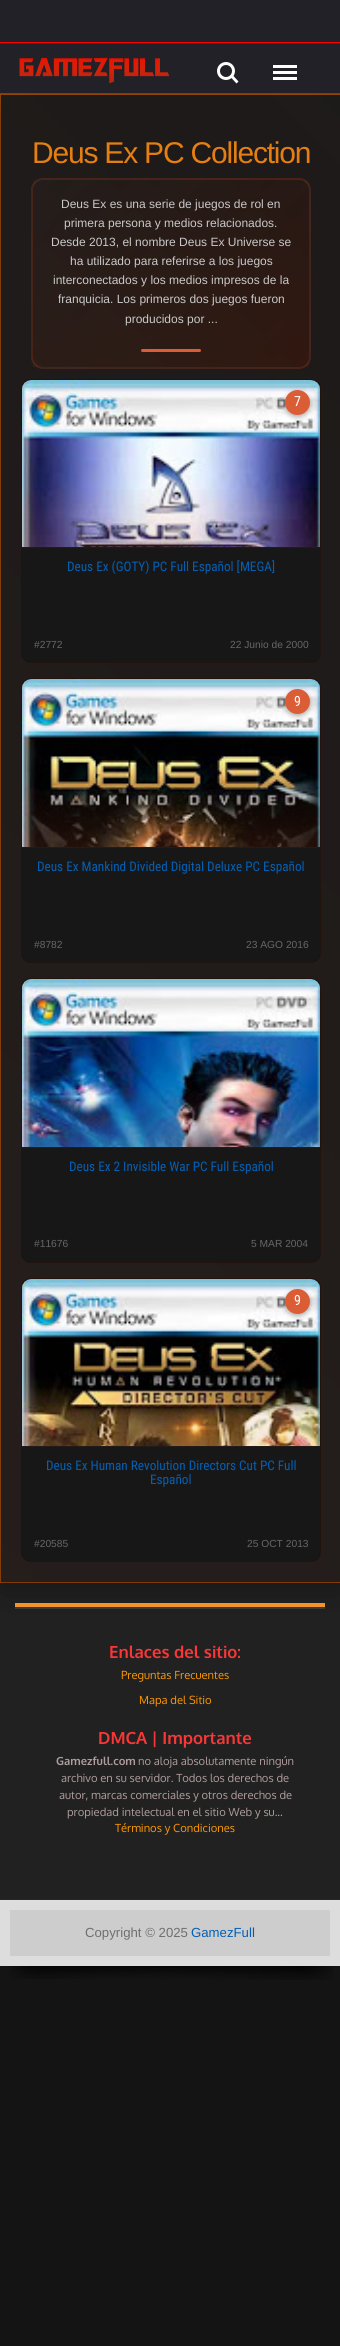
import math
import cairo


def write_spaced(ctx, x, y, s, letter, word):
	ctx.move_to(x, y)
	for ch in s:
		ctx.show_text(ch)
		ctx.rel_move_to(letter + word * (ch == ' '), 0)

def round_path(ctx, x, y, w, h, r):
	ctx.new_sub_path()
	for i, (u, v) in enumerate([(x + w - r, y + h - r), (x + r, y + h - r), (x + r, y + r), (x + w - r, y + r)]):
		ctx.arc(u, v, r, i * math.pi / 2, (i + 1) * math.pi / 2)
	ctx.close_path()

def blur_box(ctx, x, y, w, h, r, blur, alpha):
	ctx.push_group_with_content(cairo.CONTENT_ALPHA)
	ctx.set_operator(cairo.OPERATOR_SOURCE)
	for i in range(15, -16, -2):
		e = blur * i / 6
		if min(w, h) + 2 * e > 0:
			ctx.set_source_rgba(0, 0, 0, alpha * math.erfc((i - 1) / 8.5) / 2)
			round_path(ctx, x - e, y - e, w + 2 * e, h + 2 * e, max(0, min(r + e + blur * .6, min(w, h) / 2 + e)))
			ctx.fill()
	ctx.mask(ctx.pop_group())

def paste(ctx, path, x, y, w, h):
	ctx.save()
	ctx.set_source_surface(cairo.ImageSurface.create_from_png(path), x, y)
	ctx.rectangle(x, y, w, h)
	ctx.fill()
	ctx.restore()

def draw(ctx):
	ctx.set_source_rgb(0.082, 0.082, 0.082)
	ctx.paint()
	ctx.set_source_rgb(0.137, 0.129, 0.157)
	ctx.rectangle(0, 0, 340, 42)
	ctx.fill()
	ctx.set_source_rgb(1, 0, 0)
	ctx.rectangle(0, 42, 340, 1)
	ctx.fill()
	ctx.rectangle(0.5, 94.5, 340, 1488)
	ctx.set_source_rgb(0.616, 0.278, 0.035)
	ctx.set_line_width(1)
	ctx.stroke()
	ctx.set_source_rgb(0.133, 0.129, 0.129)
	ctx.rectangle(0, 1583, 340, 316)
	ctx.fill()
	ctx.set_source_rgb(0.996, 0.604, 0.18)
	ctx.rectangle(15, 1603, 310, 4)
	ctx.fill()
	ctx.set_source_rgb(0.239, 0.235, 0.235)
	ctx.rectangle(15, 1607, 310, 2)
	ctx.fill()
	ctx.set_source_rgb(0, 0, 0)
	blur_box(ctx, 1, 103, 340, 1487, 0, 16, 0.3)
	ctx.set_source_rgb(0.137, 0.129, 0.157)
	ctx.rectangle(0, 43, 340, 50)
	ctx.fill()
	ctx.set_source_rgb(1, 0, 0)
	ctx.rectangle(0, 93, 340, 1)
	ctx.fill()
	paste(ctx, 'media/1.png', 19, 57, 151, 27)
	ctx.arc(226, 71, 7.5, 0, 2 * math.pi)
	ctx.set_source_rgb(1, 1, 1)
	ctx.set_line_width(3)
	ctx.stroke()
	ctx.new_path()
	ctx.move_to(233, 75.5)
	ctx.line_to(238.5, 81.5)
	ctx.line_to(236.5, 83.5)
	ctx.line_to(231, 77.5)
	ctx.close_path()
	ctx.fill()
	ctx.rectangle(273, 71, 24, 3)
	ctx.rectangle(273, 65, 24, 3)
	ctx.rectangle(273, 77, 24, 3)
	ctx.fill()
	ctx.set_source_rgb(0.098, 0.098, 0.098)
	ctx.rectangle(1, 95, 339, 1487)
	ctx.fill()
	gradient = cairo.LinearGradient(-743, 1752, 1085, -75)
	gradient.add_color_stop_rgba(0.25, 0.859, 0.365, 0.212, 0.06)
	gradient.add_color_stop_rgba(1, 0.859, 0.365, 0.212, 0)
	ctx.set_source(gradient)
	ctx.rectangle(1, 95, 339, 1487)
	ctx.fill()
	ctx.select_font_face('Liberation Sans')
	ctx.set_font_size(30)
	ctx.set_source_rgb(0.902, 0.498, 0.071)
	write_spaced(ctx, 32, 163, 'Deus Ex PC Collection', -1.2, 0)
	ctx.save()
	round_path(ctx, 31, 178, 280, 191, 12)
	ctx.clip()
	gradient = cairo.LinearGradient(55, -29, 287, 202)
	gradient.add_color_stop_rgba(0, 0.102, 0.102, 0.102, 1)
	gradient.add_color_stop_rgba(1, 0.165, 0.086, 0.059, 1)
	ctx.set_source(gradient)
	ctx.rectangle(33, 178, 276, 2)
	ctx.fill()
	gradient = cairo.LinearGradient(-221, 158, 11, 389)
	gradient.add_color_stop_rgba(0, 0.102, 0.102, 0.102, 1)
	gradient.add_color_stop_rgba(1, 0.165, 0.086, 0.059, 1)
	ctx.set_source(gradient)
	ctx.rectangle(31, 180, 2, 187)
	ctx.fill()
	gradient = cairo.LinearGradient(55, 158, 287, 389)
	gradient.add_color_stop_rgba(0, 0.102, 0.102, 0.102, 1)
	gradient.add_color_stop_rgba(1, 0.165, 0.086, 0.059, 1)
	ctx.set_source(gradient)
	ctx.rectangle(33, 180, 276, 187)
	ctx.fill()
	gradient = cairo.LinearGradient(331, 158, 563, 389)
	gradient.add_color_stop_rgba(0, 0.102, 0.102, 0.102, 1)
	gradient.add_color_stop_rgba(1, 0.165, 0.086, 0.059, 1)
	ctx.set_source(gradient)
	ctx.rectangle(309, 180, 2, 187)
	ctx.fill()
	gradient = cairo.LinearGradient(55, 345, 287, 576)
	gradient.add_color_stop_rgba(0, 0.102, 0.102, 0.102, 1)
	gradient.add_color_stop_rgba(1, 0.165, 0.086, 0.059, 1)
	ctx.set_source(gradient)
	ctx.rectangle(33, 367, 276, 2)
	ctx.fill()
	ctx.restore()
	round_path(ctx, 32, 179, 278, 189, 11)
	ctx.set_source_rgba(0.859, 0.365, 0.212, 0.19)
	ctx.set_line_width(2)
	ctx.stroke()
	gradient = cairo.LinearGradient(-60, 505, 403, 41)
	gradient.add_color_stop_rgba(0.25, 0.859, 0.365, 0.212, 0.06)
	gradient.add_color_stop_rgba(1, 0.859, 0.365, 0.212, 0)
	ctx.set_source(gradient)
	ctx.rectangle(33, 180, 276, 187)
	ctx.fill()
	ctx.set_font_size(12)
	ctx.set_source_rgb(0.788, 0.788, 0.788)
	for x, y, s in [
		(61, 208, 'Deus Ex es una serie de juegos de rol en'),
		(64, 227, 'primera persona y medios relacionados.'),
		(51, 246, 'Desde 2013, el nombre Deus Ex Universe se'),
		(70, 265, 'ha utilizado para referirse a los juegos'),
		(53, 284, 'interconectados y los medios impresos de la'),
		(58, 303, 'franquicia. Los primeros dos juegos fueron'),
		(125, 323, 'producidos por ...'),
	]:
		ctx.move_to(x, y)
		ctx.show_text(s)
	ctx.set_source_rgb(0.859, 0.365, 0.212)
	round_path(ctx, 141, 349, 60, 3, 1.5)
	ctx.fill()
	ctx.set_source_rgb(0.039, 0.039, 0.039)
	round_path(ctx, 21, 379, 300, 284, 10)
	ctx.fill()
	round_path(ctx, 21.5, 379.5, 299, 283, 9.5)
	ctx.set_source_rgba(0.859, 0.365, 0.212, 0.12)
	ctx.set_line_width(1)
	ctx.stroke()
	paste(ctx, 'media/2.png', 22, 380, 298, 167)
	gradient = cairo.LinearGradient(171, 380, 171, 547)
	gradient.add_color_stop_rgba(0.6, 0.859, 0.365, 0.212, 0)
	gradient.add_color_stop_rgba(1, 0.859, 0.365, 0.212, 0.15)
	ctx.set_source(gradient)
	ctx.rectangle(22, 490, 298, 57)
	ctx.fill()
	ctx.set_source_rgb(0, 0, 0)
	blur_box(ctx, 285, 392, 25, 25, 12.5, 2.5, 0.3)
	ctx.set_source_rgb(0.859, 0.365, 0.212)
	ctx.arc(297.5, 402.5, 12.5, 0, 2 * math.pi)
	ctx.fill()
	ctx.select_font_face('Roboto Condensed')
	ctx.set_font_size(14)
	ctx.set_source_rgb(1, 1, 1)
	ctx.move_to(294, 406)
	ctx.show_text('7')
	ctx.set_source_rgb(0.09, 0.09, 0.09)
	ctx.new_path()
	ctx.move_to(22, 547)
	ctx.line_to(320, 547)
	ctx.line_to(320, 653)
	ctx.curve_to(320, 658, 316, 662, 311, 662)
	ctx.line_to(31, 662)
	ctx.curve_to(26, 662, 22, 658, 22, 653)
	ctx.close_path()
	ctx.fill()
	ctx.set_source_rgb(0.137, 0.106, 0.098)
	ctx.rectangle(22, 547, 298, 1)
	ctx.fill()
	ctx.set_font_size(13.2)
	ctx.set_source_rgb(0.016, 0.373, 0.706)
	ctx.move_to(67, 571)
	ctx.show_text('Deus Ex (GOTY) PC Full Español [MEGA]')
	ctx.select_font_face('Liberation Sans')
	ctx.set_font_size(10.25)
	ctx.set_source_rgb(0.4, 0.4, 0.4)
	ctx.move_to(34, 648)
	ctx.show_text('#2772')
	ctx.move_to(230, 648)
	ctx.show_text('22 Junio de 2000')
	ctx.set_source_rgb(0.039, 0.039, 0.039)
	round_path(ctx, 21, 678, 300, 285, 10)
	ctx.fill()
	round_path(ctx, 21.5, 678.5, 299, 284, 9.5)
	ctx.set_source_rgba(0.859, 0.365, 0.212, 0.12)
	ctx.stroke()
	paste(ctx, 'media/3.png', 22, 679, 298, 168)
	gradient = cairo.LinearGradient(171, 679, 171, 847)
	gradient.add_color_stop_rgba(0.6, 0.859, 0.365, 0.212, 0)
	gradient.add_color_stop_rgba(1, 0.859, 0.365, 0.212, 0.15)
	ctx.set_source(gradient)
	ctx.rectangle(22, 789, 298, 58)
	ctx.fill()
	ctx.set_source_rgb(0, 0, 0)
	blur_box(ctx, 285, 691, 25, 25, 12.5, 2.5, 0.3)
	ctx.set_source_rgb(0.859, 0.365, 0.212)
	ctx.arc(297.5, 701.5, 12.5, 0, 2 * math.pi)
	ctx.fill()
	ctx.select_font_face('Roboto Condensed')
	ctx.set_font_size(14)
	ctx.set_source_rgb(1, 1, 1)
	ctx.move_to(294, 706)
	ctx.show_text('9')
	ctx.set_source_rgb(0.09, 0.09, 0.09)
	ctx.new_path()
	ctx.move_to(22, 847)
	ctx.line_to(320, 847)
	ctx.line_to(320, 953)
	ctx.curve_to(320, 958, 316, 962, 311, 962)
	ctx.line_to(31, 962)
	ctx.curve_to(26, 962, 22, 958, 22, 953)
	ctx.close_path()
	ctx.fill()
	ctx.set_source_rgb(0.137, 0.106, 0.098)
	ctx.rectangle(22, 847, 298, 1)
	ctx.fill()
	ctx.set_font_size(13.2)
	ctx.set_source_rgb(0.016, 0.373, 0.706)
	ctx.move_to(37, 871)
	ctx.show_text('Deus Ex Mankind Divided Digital Deluxe PC Español')
	ctx.select_font_face('Liberation Sans')
	ctx.set_font_size(10.25)
	ctx.set_source_rgb(0.4, 0.4, 0.4)
	ctx.move_to(34, 948)
	ctx.show_text('#8782')
	ctx.move_to(246, 948)
	ctx.show_text('23 AGO 2016')
	ctx.set_source_rgb(0.039, 0.039, 0.039)
	round_path(ctx, 21, 978, 300, 285, 10)
	ctx.fill()
	round_path(ctx, 21.5, 978.5, 299, 284, 9.5)
	ctx.set_source_rgba(0.859, 0.365, 0.212, 0.12)
	ctx.stroke()
	paste(ctx, 'media/4.png', 22, 979, 298, 168)
	gradient = cairo.LinearGradient(171, 979, 171, 1147)
	gradient.add_color_stop_rgba(0.6, 0.859, 0.365, 0.212, 0)
	gradient.add_color_stop_rgba(1, 0.859, 0.365, 0.212, 0.15)
	ctx.set_source(gradient)
	ctx.rectangle(22, 1089, 298, 58)
	ctx.fill()
	ctx.set_source_rgb(0.09, 0.09, 0.09)
	ctx.new_path()
	ctx.move_to(22, 1147)
	ctx.line_to(320, 1147)
	ctx.line_to(320, 1253)
	ctx.curve_to(320, 1258, 316, 1262, 311, 1262)
	ctx.line_to(31, 1262)
	ctx.curve_to(26, 1262, 22, 1258, 22, 1253)
	ctx.close_path()
	ctx.fill()
	ctx.set_source_rgb(0.137, 0.106, 0.098)
	ctx.rectangle(22, 1147, 298, 1)
	ctx.fill()
	ctx.select_font_face('Roboto Condensed')
	ctx.set_font_size(13.2)
	ctx.set_source_rgb(0.016, 0.373, 0.706)
	ctx.move_to(69, 1171)
	ctx.show_text('Deus Ex 2 Invisible War PC Full Español')
	ctx.select_font_face('Liberation Sans')
	ctx.set_font_size(10.25)
	ctx.set_source_rgb(0.4, 0.4, 0.4)
	ctx.move_to(34, 1247)
	ctx.show_text('#11676')
	ctx.move_to(251, 1247)
	ctx.show_text('5 MAR 2004')
	ctx.set_source_rgb(0.039, 0.039, 0.039)
	round_path(ctx, 21, 1278, 300, 284, 10)
	ctx.fill()
	round_path(ctx, 21.5, 1278.5, 299, 283, 9.5)
	ctx.set_source_rgba(0.859, 0.365, 0.212, 0.12)
	ctx.stroke()
	paste(ctx, 'media/5.png', 22, 1279, 298, 167)
	gradient = cairo.LinearGradient(171, 1279, 171, 1446)
	gradient.add_color_stop_rgba(0.6, 0.859, 0.365, 0.212, 0)
	gradient.add_color_stop_rgba(1, 0.859, 0.365, 0.212, 0.15)
	ctx.set_source(gradient)
	ctx.rectangle(22, 1389, 298, 57)
	ctx.fill()
	ctx.set_source_rgb(0, 0, 0)
	blur_box(ctx, 285, 1291, 25, 25, 12.5, 2.5, 0.3)
	ctx.set_source_rgb(0.859, 0.365, 0.212)
	ctx.arc(297.5, 1301.5, 12.5, 0, 2 * math.pi)
	ctx.fill()
	ctx.select_font_face('Roboto Condensed')
	ctx.set_font_size(14)
	ctx.set_source_rgb(1, 1, 1)
	ctx.move_to(294, 1305)
	ctx.show_text('9')
	ctx.set_source_rgb(0.09, 0.09, 0.09)
	ctx.new_path()
	ctx.move_to(22, 1446)
	ctx.line_to(320, 1446)
	ctx.line_to(320, 1552)
	ctx.curve_to(320, 1557, 316, 1561, 311, 1561)
	ctx.line_to(31, 1561)
	ctx.curve_to(26, 1561, 22, 1557, 22, 1552)
	ctx.close_path()
	ctx.fill()
	ctx.set_source_rgb(0.137, 0.106, 0.098)
	ctx.rectangle(22, 1446, 298, 1)
	ctx.fill()
	ctx.set_font_size(13.2)
	ctx.set_source_rgb(0.016, 0.373, 0.706)
	ctx.move_to(46, 1470)
	ctx.show_text('Deus Ex Human Revolution Directors Cut PC Full')
	ctx.move_to(150, 1484)
	ctx.show_text('Español')
	ctx.select_font_face('Liberation Sans')
	ctx.set_font_size(10.25)
	ctx.set_source_rgb(0.4, 0.4, 0.4)
	ctx.move_to(34, 1547)
	ctx.show_text('#20585')
	ctx.move_to(247, 1547)
	ctx.show_text('25 OCT 2013')
	ctx.select_font_face('Oxygen', cairo.FONT_SLANT_NORMAL, cairo.FONT_WEIGHT_BOLD)
	ctx.set_font_size(16.75)
	ctx.set_source_rgb(0.976, 0.216, 0.216)
	ctx.move_to(109, 1658)
	ctx.show_text('Enlaces del sitio:')
	ctx.select_font_face('Oxygen')
	ctx.set_font_size(11.2)
	ctx.set_source_rgb(1, 0.6, 0)
	ctx.move_to(121, 1679)
	ctx.show_text('Preguntas Frecuentes')
	ctx.move_to(139, 1704)
	ctx.show_text('Mapa del Sitio')
	ctx.select_font_face('Oxygen', cairo.FONT_SLANT_NORMAL, cairo.FONT_WEIGHT_BOLD)
	ctx.set_font_size(16.75)
	ctx.set_source_rgb(0.976, 0.216, 0.216)
	ctx.move_to(98, 1744)
	ctx.show_text('DMCA | Importante')
	ctx.set_font_size(11.2)
	ctx.set_source_rgb(0.69, 0.62, 0.62)
	ctx.move_to(56, 1765)
	ctx.show_text('Gamezfull.com')
	ctx.select_font_face('Oxygen')
	for x, y, s in [
		(138, 1765, 'no aloja absolutamente ningún'),
		(61, 1782, 'archivo en su servidor. Todos los derechos de'),
		(59, 1799, 'autor, marcas comerciales y otros derechos de'),
		(67, 1816, 'propiedad intelectual en el sitio Web y su...'),
	]:
		ctx.move_to(x, y)
		ctx.show_text(s)
	ctx.set_source_rgb(1, 0.6, 0)
	ctx.move_to(115, 1832)
	ctx.show_text('Términos y Condiciones')
	paste(ctx, 'media/6.png', 10, 1966, 304, 13)
	paste(ctx, 'media/7.png', 8, 1966, 325, 14)
	ctx.set_source_rgb(0.867, 0.867, 0.867)
	ctx.rectangle(0, 1900, 340, 66)
	ctx.fill()
	ctx.set_source_rgb(0.153, 0.153, 0.153)
	ctx.rectangle(0, 1899, 340, 1)
	ctx.fill()
	ctx.set_source_rgb(0.804, 0.804, 0.804)
	ctx.rectangle(10, 1910, 320, 46)
	ctx.fill()
	ctx.select_font_face('Liberation Sans')
	ctx.set_font_size(13.2)
	ctx.set_source_rgb(0.435, 0.435, 0.435)
	ctx.move_to(85, 1937)
	ctx.show_text('Copyright © 2025')
	ctx.set_source_rgb(0.016, 0.373, 0.706)
	ctx.move_to(191, 1937)
	ctx.show_text('GamezFull')


surface = cairo.ImageSurface(cairo.FORMAT_RGB24, 340, 2346)
ctx = cairo.Context(surface)
options = cairo.FontOptions()
options.set_hint_metrics(cairo.HINT_METRICS_OFF)
options.set_hint_style(cairo.HINT_STYLE_NONE)
ctx.set_font_options(options)
ctx.set_miter_limit(4)
draw(ctx)
surface.write_to_png('image.png')
